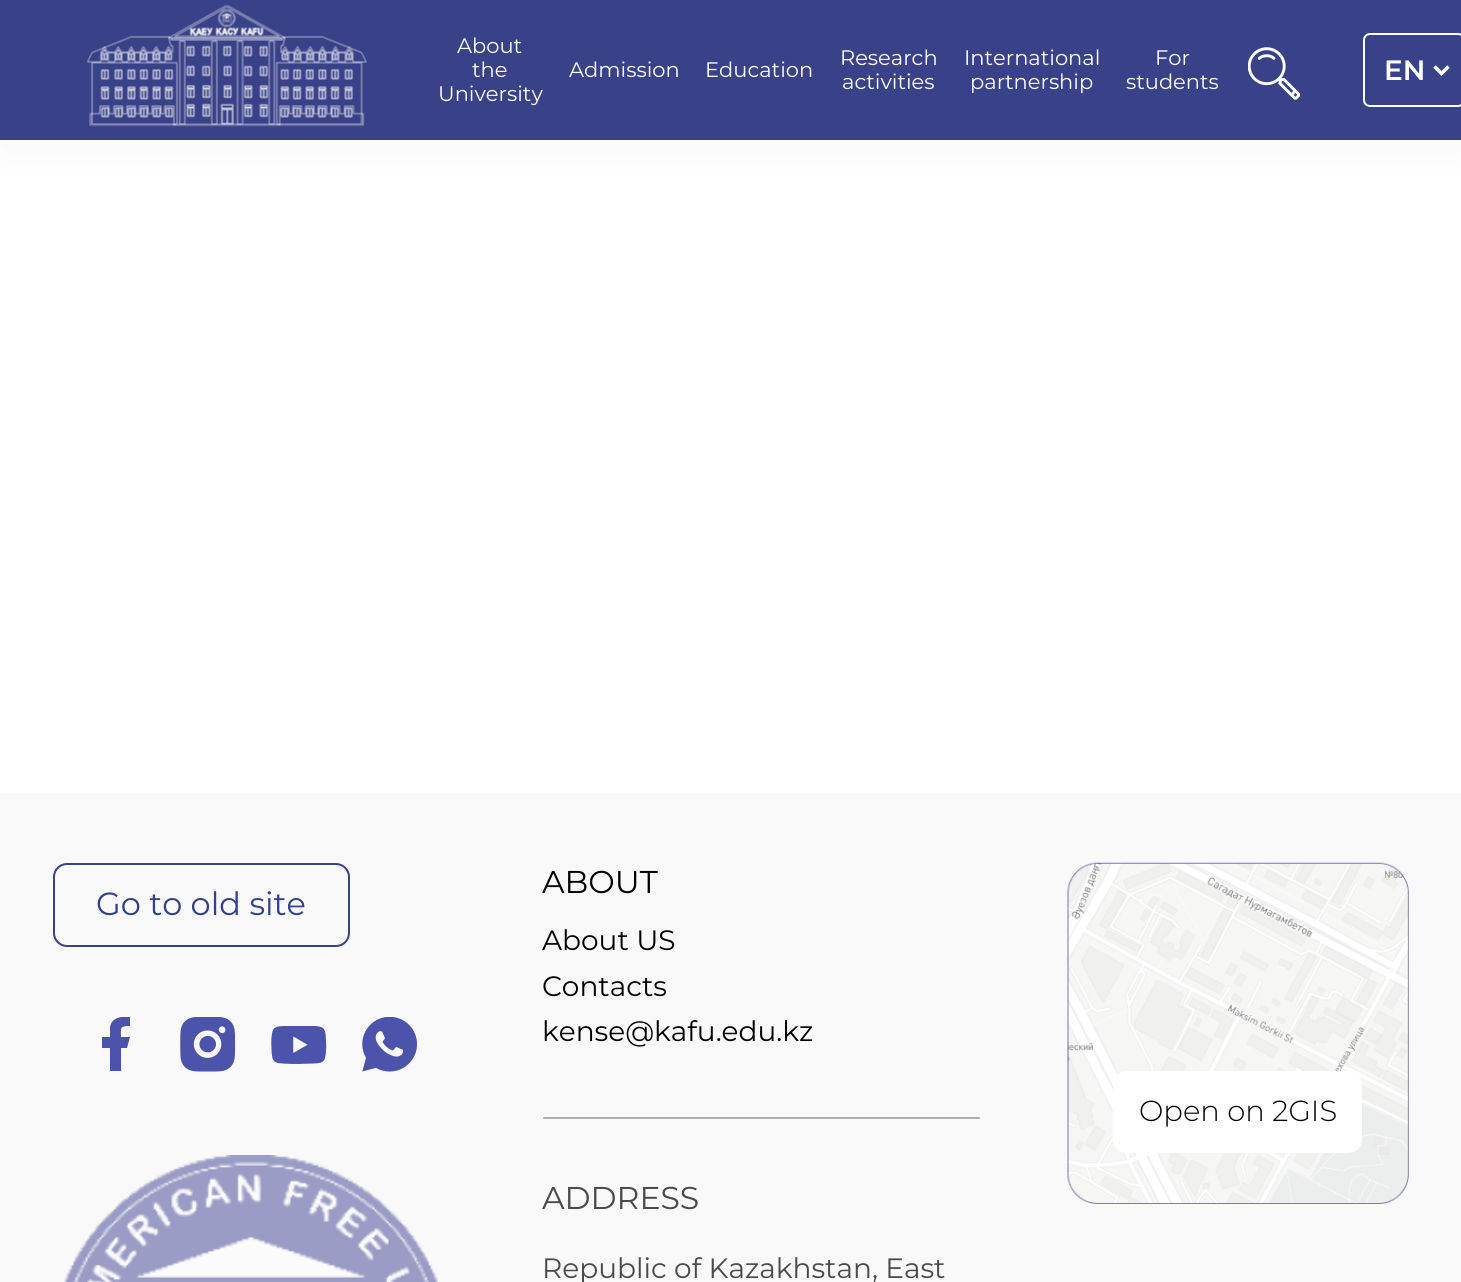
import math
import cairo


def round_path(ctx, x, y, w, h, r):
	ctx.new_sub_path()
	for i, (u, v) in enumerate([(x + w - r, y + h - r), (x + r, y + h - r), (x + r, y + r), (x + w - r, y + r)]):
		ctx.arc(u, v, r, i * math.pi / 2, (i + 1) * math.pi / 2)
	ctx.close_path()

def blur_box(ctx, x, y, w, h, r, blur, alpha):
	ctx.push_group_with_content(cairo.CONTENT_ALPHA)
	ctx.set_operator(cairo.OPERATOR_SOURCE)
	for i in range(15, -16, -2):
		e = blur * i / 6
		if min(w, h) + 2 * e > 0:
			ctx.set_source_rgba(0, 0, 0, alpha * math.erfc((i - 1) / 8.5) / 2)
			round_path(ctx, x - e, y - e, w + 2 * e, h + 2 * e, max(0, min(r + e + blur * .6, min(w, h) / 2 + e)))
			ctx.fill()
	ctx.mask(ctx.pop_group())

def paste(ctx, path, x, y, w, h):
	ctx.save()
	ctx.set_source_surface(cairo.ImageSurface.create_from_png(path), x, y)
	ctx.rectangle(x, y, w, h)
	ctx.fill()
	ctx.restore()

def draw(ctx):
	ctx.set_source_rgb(1, 1, 1)
	ctx.paint()
	ctx.set_source_rgb(0, 0, 0)
	blur_box(ctx, 0, 4, 1461, 140, 0, 22, 0.05)
	ctx.set_source_rgb(0.224, 0.255, 0.533)
	ctx.rectangle(0, 0, 1461, 140)
	ctx.fill()
	paste(ctx, 'media/1.png', 87, 5, 280, 122)
	ctx.select_font_face('Montserrat')
	ctx.set_font_size(21)
	ctx.set_source_rgb(1, 1, 1)
	for x, y, s in [
		(457, 53, 'About'),
		(472, 77, 'the'),
		(438, 101, 'University'),
		(569, 77, 'Admission'),
		(705, 77, 'Education'),
		(840, 65, 'Research'),
		(842, 89, 'activities'),
		(964, 65, 'International'),
		(970, 89, 'partnership'),
		(1155, 65, 'For'),
		(1126, 89, 'students'),
	]:
		ctx.move_to(x, y)
		ctx.show_text(s)
	paste(ctx, 'media/2.png', 1248, 47, 52, 53)
	round_path(ctx, 1364, 34, 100, 72, 6)
	ctx.stroke()
	ctx.new_path()
	ctx.move_to(1434.5, 66.5)
	ctx.line_to(1441.5, 73.5)
	ctx.line_to(1448.5, 66.5)
	ctx.set_line_width(3.5)
	ctx.stroke()
	ctx.select_font_face('Montserrat SemiBold')
	ctx.set_font_size(28)
	ctx.move_to(1384, 80)
	ctx.show_text('EN')
	ctx.set_source_rgb(0.973, 0.973, 0.973)
	ctx.rectangle(0, 793, 1461, 489)
	ctx.fill()
	round_path(ctx, 54, 864, 295, 82, 13)
	ctx.set_source_rgb(0.224, 0.255, 0.533)
	ctx.set_line_width(2)
	ctx.stroke()
	ctx.select_font_face('Montserrat')
	ctx.set_font_size(32)
	ctx.set_source_rgb(0.196, 0.247, 0.545)
	ctx.move_to(96, 915)
	ctx.show_text('Go to old site')
	ctx.save()
	ctx.rectangle(102, 1017, 29, 56)
	ctx.clip()
	ctx.set_source_rgb(0.294, 0.329, 0.667)
	ctx.new_path()
	ctx.move_to(121, 1048)
	ctx.line_to(127, 1048)
	ctx.line_to(130, 1037)
	ctx.line_to(121, 1037)
	ctx.curve_to(121, 1028, 119, 1026, 130, 1026)
	ctx.line_to(130, 1017)
	ctx.curve_to(122, 1016, 112, 1017, 110, 1027)
	ctx.line_to(110, 1037)
	ctx.line_to(102, 1037)
	ctx.line_to(102, 1048)
	ctx.line_to(110, 1048)
	ctx.line_to(110, 1071)
	ctx.line_to(121, 1071)
	ctx.close_path()
	ctx.fill()
	ctx.restore()
	paste(ctx, 'media/3.png', 180, 1017, 56, 55)
	paste(ctx, 'media/4.png', 271, 1026, 56, 38)
	paste(ctx, 'media/5.png', 362, 1017, 55, 55)
	paste(ctx, 'media/6.png', 64, 1155, 374, 127)
	ctx.set_font_size(31.5)
	ctx.set_source_rgb(0, 0, 0)
	ctx.move_to(542, 893)
	ctx.show_text('ABOUT')
	ctx.set_font_size(28)
	for x, y, s in [
		(542, 950, 'About US'),
		(542, 996, 'Contacts'),
		(542, 1041, 'kense@kafu.edu.kz'),
	]:
		ctx.move_to(x, y)
		ctx.show_text(s)
	ctx.set_source_rgb(0.682, 0.682, 0.682)
	round_path(ctx, 543, 1117, 437, 2, 1)
	ctx.fill()
	ctx.set_font_size(31.5)
	ctx.set_source_rgb(0.29, 0.29, 0.29)
	ctx.move_to(542, 1209)
	ctx.show_text('ADDRESS')
	ctx.set_font_size(28)
	ctx.move_to(542, 1278)
	ctx.show_text('Republic of Kazakhstan, East')
	paste(ctx, 'media/7.png', 1067, 862, 342, 342)
	ctx.set_source_rgb(1, 1, 1)
	round_path(ctx, 1113, 1071, 249, 82, 14)
	ctx.fill()
	ctx.select_font_face('Montserrat Light')
	ctx.set_font_size(29)
	ctx.set_source_rgb(0, 0, 0)
	ctx.move_to(1139, 1121)
	ctx.show_text('Open on 2GIS')


surface = cairo.ImageSurface(cairo.FORMAT_RGB24, 1461, 1282)
ctx = cairo.Context(surface)
options = cairo.FontOptions()
options.set_hint_metrics(cairo.HINT_METRICS_OFF)
options.set_hint_style(cairo.HINT_STYLE_NONE)
ctx.set_font_options(options)
ctx.set_miter_limit(4)
draw(ctx)
surface.write_to_png('image.png')
